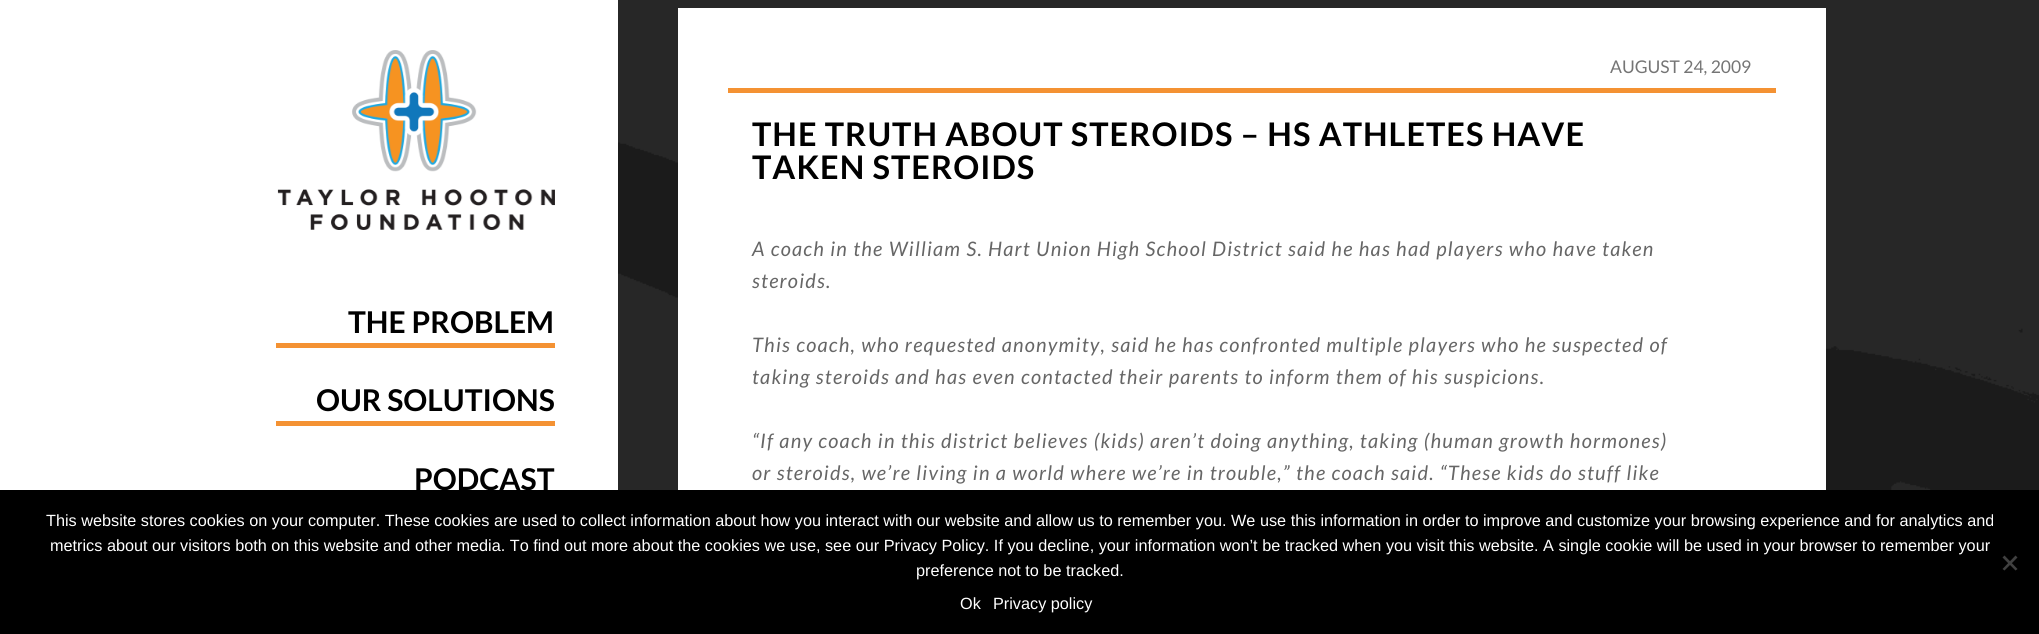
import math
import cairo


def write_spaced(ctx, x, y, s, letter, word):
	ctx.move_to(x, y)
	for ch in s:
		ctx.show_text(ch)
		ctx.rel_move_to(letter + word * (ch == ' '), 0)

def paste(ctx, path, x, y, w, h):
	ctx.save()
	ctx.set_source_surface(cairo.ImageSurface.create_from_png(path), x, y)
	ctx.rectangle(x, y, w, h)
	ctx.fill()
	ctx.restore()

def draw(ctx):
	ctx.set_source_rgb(1, 1, 1)
	ctx.paint()
	paste(ctx, 'media/1.png', 618, 0, 1421, 490)
	paste(ctx, 'media/2.png', 277, 50, 278, 180)
	ctx.select_font_face('Lato', cairo.FONT_SLANT_NORMAL, cairo.FONT_WEIGHT_BOLD)
	ctx.set_font_size(30)
	ctx.set_source_rgb(0, 0, 0)
	ctx.move_to(348, 333)
	ctx.show_text('THE PROBLEM')
	ctx.set_source_rgb(0.957, 0.573, 0.2)
	ctx.rectangle(276, 343, 279, 5)
	ctx.fill()
	ctx.set_source_rgb(0, 0, 0)
	ctx.move_to(316, 411)
	ctx.show_text('OUR SOLUTIONS')
	ctx.set_source_rgb(0.957, 0.573, 0.2)
	ctx.rectangle(276, 421, 279, 5)
	ctx.fill()
	ctx.set_source_rgb(0, 0, 0)
	ctx.move_to(414, 490)
	ctx.show_text('PODCAST')
	ctx.set_source_rgb(0.153, 0.153, 0.153)
	ctx.rectangle(913, 0, 790, 70)
	ctx.fill()
	ctx.set_source_rgb(1, 1, 1)
	ctx.rectangle(678, 8, 1148, 482)
	ctx.fill()
	ctx.set_source_rgb(0.957, 0.573, 0.2)
	ctx.rectangle(728, 88, 1048, 5)
	ctx.fill()
	ctx.select_font_face('Lato')
	ctx.set_font_size(17.5)
	ctx.set_source_rgb(0.459, 0.459, 0.459)
	ctx.move_to(1610, 73)
	ctx.show_text('AUGUST 24, 2009')
	ctx.select_font_face('Lato', cairo.FONT_SLANT_NORMAL, cairo.FONT_WEIGHT_BOLD)
	ctx.set_font_size(32.5)
	ctx.set_source_rgb(0, 0, 0)
	write_spaced(ctx, 752, 146, 'THE TRUTH ABOUT STEROIDS – HS ATHLETES HAVE', 1, 0)
	write_spaced(ctx, 752, 179, 'TAKEN STEROIDS', 1, 0)
	ctx.select_font_face('Lato', cairo.FONT_SLANT_ITALIC)
	ctx.set_font_size(20)
	ctx.set_source_rgb(0.4, 0.4, 0.4)
	for x, y, s in [
		(752, 256, 'A coach in the William S. Hart Union High School District said he has had players who have taken'),
		(752, 288, 'steroids.'),
		(752, 352, 'This coach, who requested anonymity, said he has confronted multiple players who he suspected of'),
		(752, 384, 'taking steroids and has even contacted their parents to inform them of his suspicions.'),
		(752, 448, '“If any coach in this district believes (kids) aren’t doing anything, taking (human growth hormones)'),
		(752, 480, 'or steroids, we’re living in a world where we’re in trouble,” the coach said. “These kids do stuff like'),
	]:
		write_spaced(ctx, x, y, s, 1.25, 0)
	ctx.set_source_rgb(0, 0, 0)
	ctx.rectangle(0, 490, 2039, 144)
	ctx.fill()
	ctx.select_font_face('Liberation Sans')
	ctx.set_font_size(16.25)
	ctx.set_source_rgb(1, 1, 1)
	for x, y, s in [
		(46, 526, 'This website stores cookies on your computer. These cookies are used to collect information about how you interact with our website and allow us to remember you. We use this information in order to improve and customize your browsing experience and for analytics and'),
		(50, 551, 'metrics about our visitors both on this website and other media. To find out more about the cookies we use, see our Privacy Policy. If you decline, your information won’t be tracked when you visit this website. A single cookie will be used in your browser to remember your'),
		(916, 576, 'preference not to be tracked.'),
	]:
		ctx.move_to(x, y)
		ctx.show_text(s)
	ctx.set_source_rgb(0.251, 0.251, 0.251)
	ctx.new_path()
	ctx.move_to(2015.5, 555.5)
	ctx.line_to(2017.5, 557.5)
	ctx.line_to(2004.5, 570.5)
	ctx.line_to(2002.5, 569)
	ctx.close_path()
	ctx.fill()
	ctx.new_path()
	ctx.move_to(2002.5, 557.5)
	ctx.line_to(2004.5, 555.5)
	ctx.line_to(2017.5, 569)
	ctx.line_to(2015.5, 570.5)
	ctx.close_path()
	ctx.fill()
	ctx.set_source_rgb(1, 1, 1)
	ctx.move_to(960, 609)
	ctx.show_text('Ok')
	ctx.move_to(993, 609)
	ctx.show_text('Privacy policy')


surface = cairo.ImageSurface(cairo.FORMAT_RGB24, 2039, 634)
ctx = cairo.Context(surface)
options = cairo.FontOptions()
options.set_hint_metrics(cairo.HINT_METRICS_OFF)
options.set_hint_style(cairo.HINT_STYLE_NONE)
ctx.set_font_options(options)
ctx.set_miter_limit(4)
draw(ctx)
surface.write_to_png('image.png')
